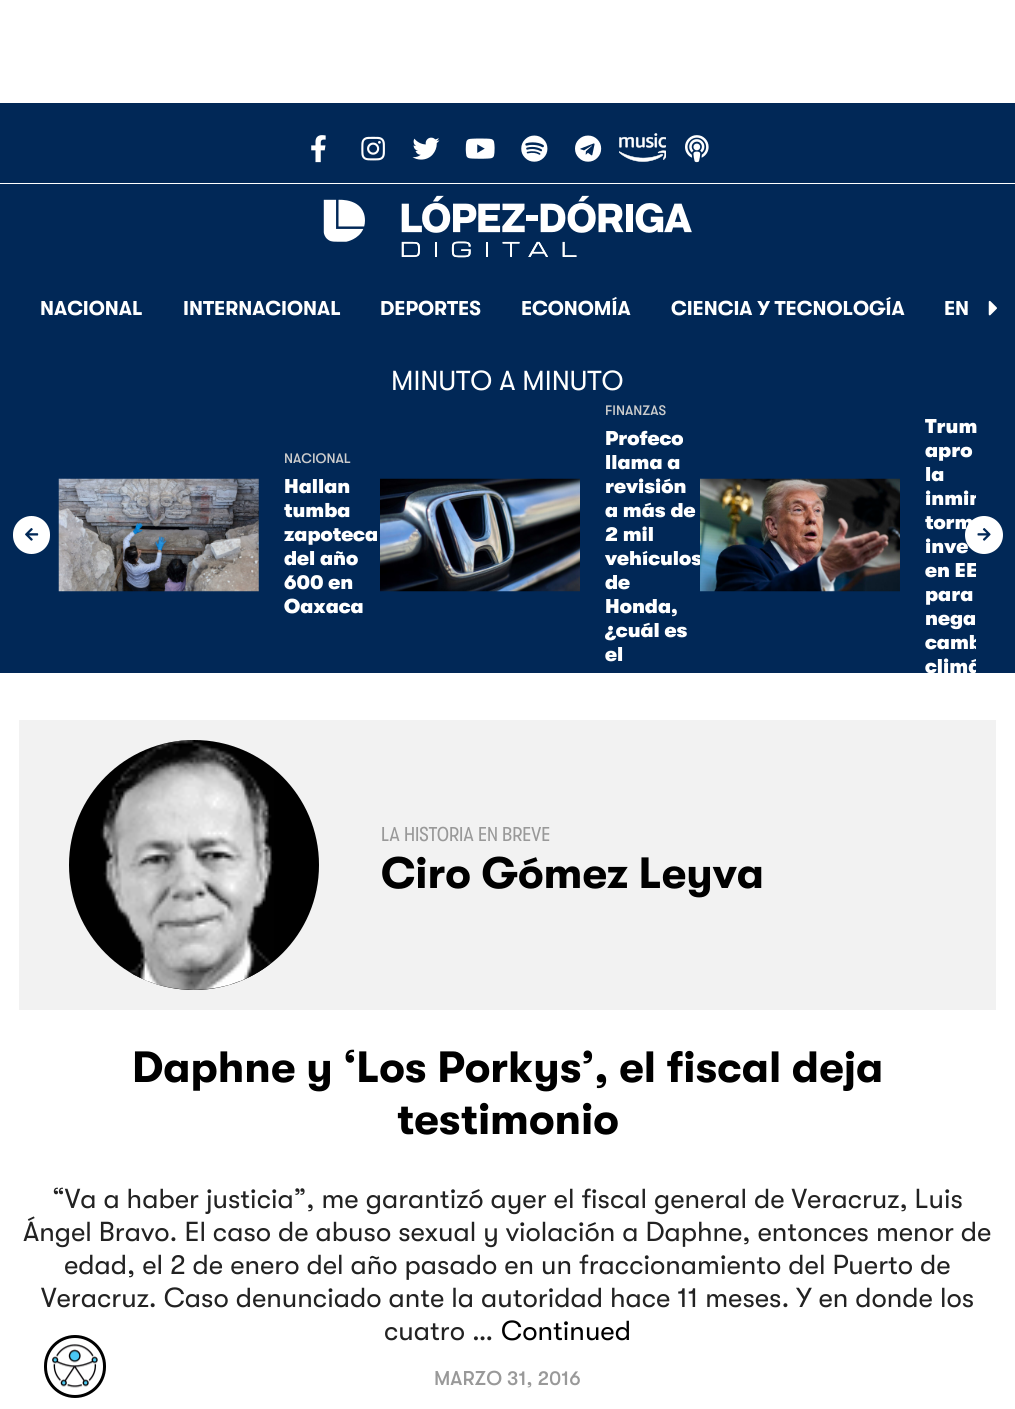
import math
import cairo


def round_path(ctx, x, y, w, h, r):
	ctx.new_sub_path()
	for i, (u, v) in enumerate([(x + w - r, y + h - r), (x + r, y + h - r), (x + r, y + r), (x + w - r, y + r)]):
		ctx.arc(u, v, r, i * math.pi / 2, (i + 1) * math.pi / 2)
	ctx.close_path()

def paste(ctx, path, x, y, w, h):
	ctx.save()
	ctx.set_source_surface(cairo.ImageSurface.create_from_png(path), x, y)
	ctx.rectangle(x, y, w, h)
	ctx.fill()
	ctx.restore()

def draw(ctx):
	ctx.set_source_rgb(1, 1, 1)
	ctx.paint()
	ctx.set_source_rgb(0.004, 0.157, 0.341)
	ctx.rectangle(0, 103, 1015, 175)
	ctx.fill()
	ctx.set_source_rgb(1, 1, 1)
	ctx.rectangle(0, 183, 1015, 1)
	ctx.fill()
	paste(ctx, 'media/1.png', 311, 135, 15, 28)
	paste(ctx, 'media/2.png', 361, 136, 24, 25)
	paste(ctx, 'media/3.png', 412, 137, 28, 23)
	paste(ctx, 'media/4.png', 465, 138, 30, 21)
	paste(ctx, 'media/5.png', 521, 135, 27, 27)
	paste(ctx, 'media/6.png', 575, 135, 27, 27)
	paste(ctx, 'media/7.png', 619, 133, 47, 29)
	paste(ctx, 'media/8.png', 685, 135, 24, 28)
	paste(ctx, 'media/9.png', 323, 195, 369, 63)
	ctx.set_source_rgb(0.004, 0.157, 0.341)
	ctx.rectangle(0, 278, 1015, 395)
	ctx.fill()
	ctx.select_font_face('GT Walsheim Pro', cairo.FONT_SLANT_NORMAL, cairo.FONT_WEIGHT_BOLD)
	ctx.set_font_size(20)
	ctx.set_source_rgb(1, 1, 1)
	for x, y, s in [
		(40, 315, 'NACIONAL'),
		(183, 315, 'INTERNACIONAL'),
		(380, 315, 'DEPORTES'),
		(521, 315, 'ECONOMÍA'),
		(671, 315, 'CIENCIA Y TECNOLOGÍA'),
		(944, 315, 'EN'),
	]:
		ctx.move_to(x, y)
		ctx.show_text(s)
	paste(ctx, 'media/10.png', 988, 300, 9, 16)
	ctx.select_font_face('GT Walsheim Pro')
	ctx.set_font_size(27.5)
	ctx.move_to(391, 390)
	ctx.show_text('MINUTO A MINUTO')
	round_path(ctx, 13, 516, 37, 38, 18.5)
	ctx.fill()
	paste(ctx, 'media/11.png', 25, 528, 14, 13)
	paste(ctx, 'media/12.png', 58, 478, 201, 114)
	ctx.select_font_face('GT Walsheim Pro Medium')
	ctx.set_font_size(13.75)
	ctx.set_source_rgb(0.8, 0.8, 0.8)
	ctx.move_to(284, 463)
	ctx.show_text('NACIONAL')
	ctx.select_font_face('GT Walsheim Pro Black')
	ctx.set_font_size(20)
	ctx.set_source_rgb(1, 1, 1)
	for x, y, s in [
		(284, 493, 'Hallan'),
		(284, 517, 'tumba'),
		(284, 541, 'zapoteca'),
		(284, 565, 'del año'),
		(284, 589, '600 en'),
		(284, 613, 'Oaxaca'),
	]:
		ctx.move_to(x, y)
		ctx.show_text(s)
	paste(ctx, 'media/13.png', 380, 478, 200, 114)
	ctx.select_font_face('GT Walsheim Pro Medium')
	ctx.set_font_size(13.75)
	ctx.set_source_rgb(0.8, 0.8, 0.8)
	ctx.move_to(605, 415)
	ctx.show_text('FINANZAS')
	ctx.select_font_face('GT Walsheim Pro Black')
	ctx.set_font_size(20)
	ctx.set_source_rgb(1, 1, 1)
	for x, y, s in [
		(605, 445, 'Profeco'),
		(605, 469, 'llama a'),
		(605, 493, 'revisión'),
		(605, 517, 'a más de'),
		(605, 541, '2 mil'),
		(605, 565, 'vehículos'),
		(605, 589, 'de'),
		(605, 613, 'Honda,'),
		(605, 637, '¿cuál es'),
		(605, 661, 'el'),
	]:
		ctx.move_to(x, y)
		ctx.show_text(s)
	paste(ctx, 'media/14.png', 700, 478, 200, 114)
	ctx.save()
	ctx.rectangle(39, 398, 937, 275)
	ctx.clip()
	ctx.move_to(925, 433)
	ctx.show_text('Trum')
	ctx.restore()
	ctx.move_to(925, 457)
	ctx.show_text('apro')
	ctx.move_to(925, 481)
	ctx.show_text('la')
	ctx.save()
	ctx.rectangle(39, 398, 937, 275)
	ctx.clip()
	ctx.move_to(925, 505)
	ctx.show_text('inmin')
	ctx.restore()
	ctx.move_to(925, 529)
	ctx.show_text('torm')
	ctx.move_to(925, 553)
	ctx.show_text('inve')
	ctx.save()
	ctx.rectangle(39, 398, 937, 275)
	ctx.clip()
	ctx.move_to(925, 577)
	ctx.show_text('en EE')
	ctx.restore()
	ctx.move_to(925, 601)
	ctx.show_text('para')
	ctx.move_to(925, 625)
	ctx.show_text('nega')
	ctx.save()
	ctx.rectangle(39, 398, 937, 275)
	ctx.clip()
	ctx.move_to(925, 649)
	ctx.show_text('camb')
	ctx.move_to(925, 673)
	ctx.show_text('climá')
	ctx.restore()
	ctx.new_path()
	ctx.arc(984, 535, 19, 0, 2 * math.pi)
	ctx.fill()
	paste(ctx, 'media/15.png', 977, 528, 14, 13)
	ctx.set_source_rgb(0.949, 0.949, 0.949)
	ctx.rectangle(19, 720, 977, 290)
	ctx.fill()
	ctx.set_source_rgb(0, 0, 0)
	ctx.arc(194, 865, 125, 0, 2 * math.pi)
	ctx.fill()
	paste(ctx, 'media/16.png', 100, 740, 174, 250)
	ctx.select_font_face('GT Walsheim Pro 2')
	ctx.set_source_rgb(0.6, 0.6, 0.6)
	ctx.move_to(381, 841)
	ctx.show_text('LA HISTORIA EN BREVE')
	ctx.select_font_face('GT Walsheim Pro', cairo.FONT_SLANT_NORMAL, cairo.FONT_WEIGHT_BOLD)
	ctx.set_font_size(43.75)
	ctx.set_source_rgb(0, 0, 0)
	for x, y, s in [
		(381, 888, 'Ciro Gómez Leyva'),
		(132, 1082, 'Daphne y ‘Los Porkys’, el fiscal deja'),
		(397, 1134, 'testimonio'),
	]:
		ctx.move_to(x, y)
		ctx.show_text(s)
	ctx.select_font_face('GT Walsheim Pro')
	ctx.set_font_size(27.5)
	ctx.set_source_rgb(0.133, 0.133, 0.133)
	for x, y, s in [
		(52, 1208, '“Va a haber justicia”, me garantizó ayer el fiscal general de Veracruz, Luis'),
		(23, 1241, 'Ángel Bravo. El caso de abuso sexual y violación a Daphne, entonces menor de'),
		(64, 1274, 'edad, el 2 de enero del año pasado en un fraccionamiento del Puerto de'),
		(41, 1307, 'Veracruz. Caso denunciado ante la autoridad hace 11 meses. Y en donde los'),
		(384, 1340, 'cuatro …'),
	]:
		ctx.move_to(x, y)
		ctx.show_text(s)
	ctx.set_source_rgb(0, 0, 0)
	ctx.move_to(501, 1340)
	ctx.show_text('Continued')
	ctx.select_font_face('GT Walsheim Pro Medium')
	ctx.set_font_size(20)
	ctx.set_source_rgb(0.6, 0.6, 0.6)
	ctx.move_to(434, 1385)
	ctx.show_text('MARZO 31, 2016')
	round_path(ctx, 45.5, 1336.5, 59, 60, 29.5)
	ctx.set_source_rgb(0, 0, 0)
	ctx.set_line_width(3)
	ctx.stroke()
	paste(ctx, 'media/17.png', 52, 1344, 46, 44)


surface = cairo.ImageSurface(cairo.FORMAT_RGB24, 1015, 1409)
ctx = cairo.Context(surface)
options = cairo.FontOptions()
options.set_hint_metrics(cairo.HINT_METRICS_OFF)
options.set_hint_style(cairo.HINT_STYLE_NONE)
ctx.set_font_options(options)
ctx.set_miter_limit(4)
draw(ctx)
surface.write_to_png('image.png')
